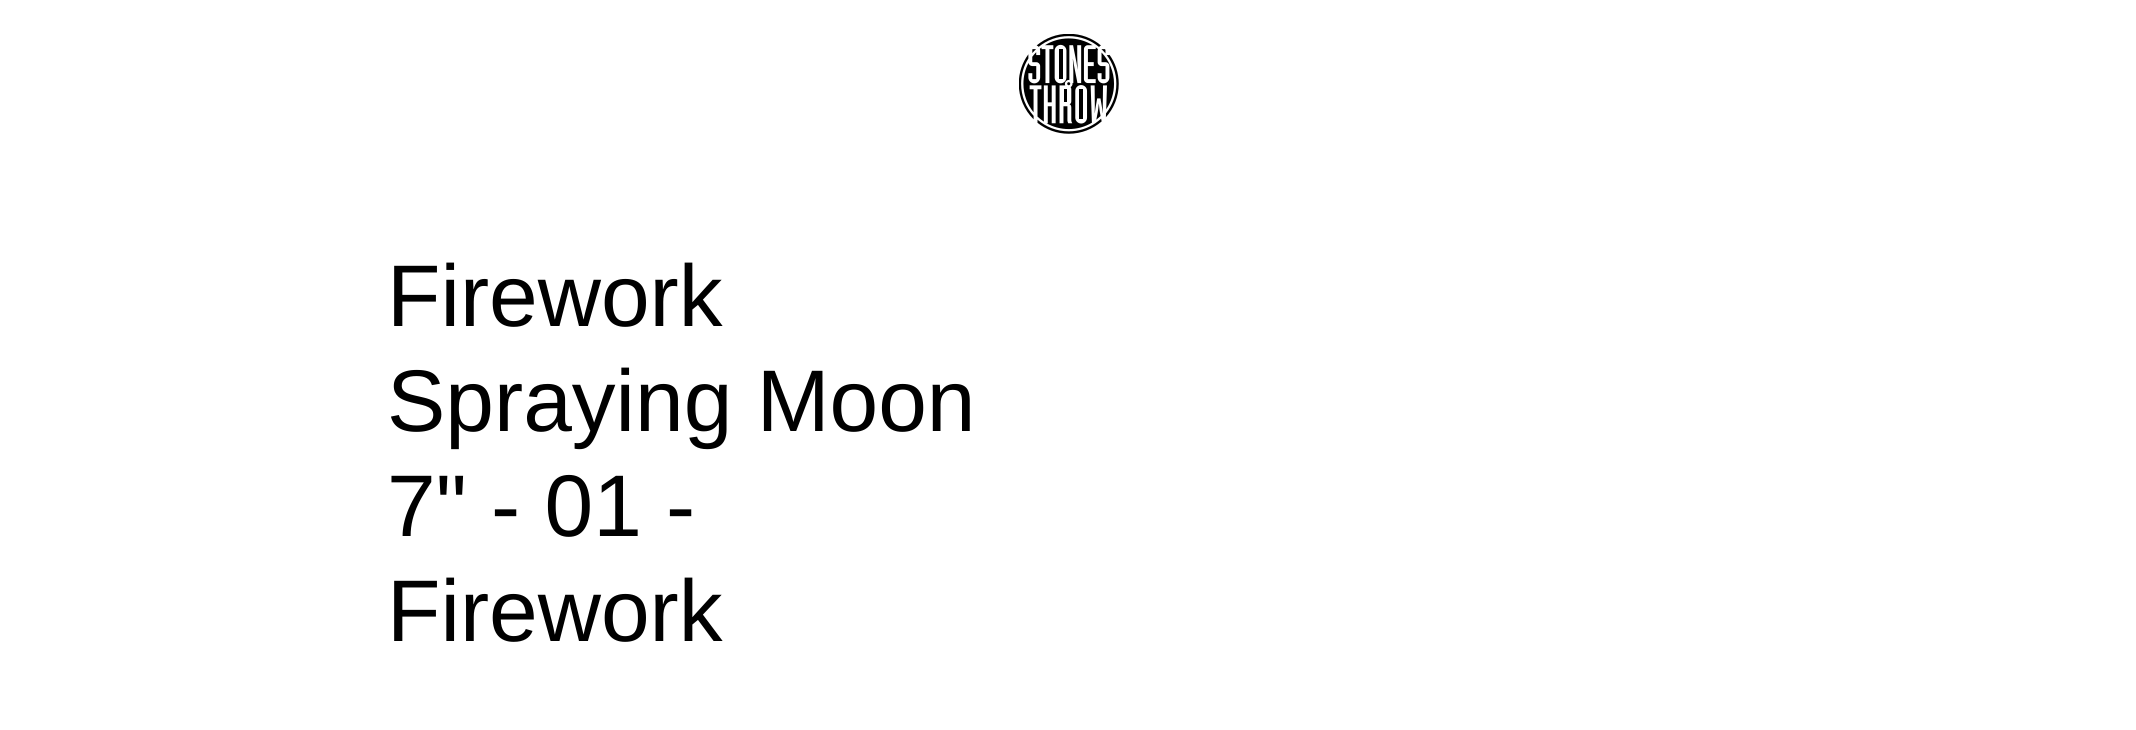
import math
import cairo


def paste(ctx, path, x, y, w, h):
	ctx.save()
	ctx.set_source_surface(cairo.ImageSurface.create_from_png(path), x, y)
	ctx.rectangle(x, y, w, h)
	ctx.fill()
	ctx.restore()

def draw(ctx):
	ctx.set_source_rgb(1, 1, 1)
	ctx.paint()
	paste(ctx, 'media/1.png', 1019, 34, 100, 100)
	ctx.select_font_face('Liberation Sans')
	ctx.set_font_size(87.5)
	ctx.set_source_rgb(0, 0, 0)
	for x, y, s in [
		(387, 326, 'Firework'),
		(387, 431, 'Spraying Moon'),
		(387, 536, '7" - 01 -'),
		(387, 641, 'Firework'),
	]:
		ctx.move_to(x, y)
		ctx.show_text(s)


surface = cairo.ImageSurface(cairo.FORMAT_RGB24, 2136, 730)
ctx = cairo.Context(surface)
options = cairo.FontOptions()
options.set_hint_metrics(cairo.HINT_METRICS_OFF)
options.set_hint_style(cairo.HINT_STYLE_NONE)
ctx.set_font_options(options)
ctx.set_miter_limit(4)
draw(ctx)
surface.write_to_png('image.png')
